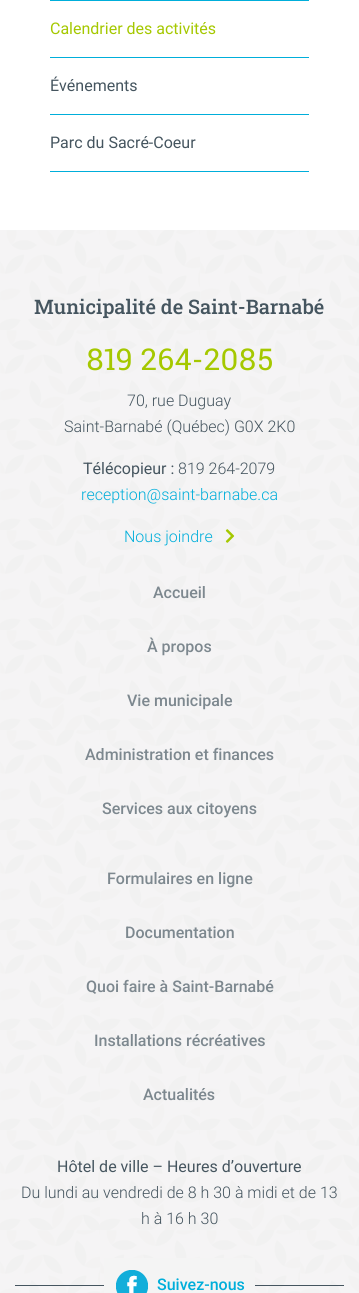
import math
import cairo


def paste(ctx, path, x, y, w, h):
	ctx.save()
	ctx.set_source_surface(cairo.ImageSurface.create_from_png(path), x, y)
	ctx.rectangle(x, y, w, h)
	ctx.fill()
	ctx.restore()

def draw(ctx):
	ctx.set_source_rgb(1, 1, 1)
	ctx.paint()
	ctx.set_source_rgb(0, 0.682, 0.855)
	ctx.rectangle(50, 0, 259, 1)
	ctx.fill()
	ctx.rectangle(50, 57, 259, 1)
	ctx.fill()
	ctx.select_font_face('Roboto')
	ctx.set_font_size(16)
	ctx.set_source_rgb(0.647, 0.784, 0)
	ctx.move_to(50, 34)
	ctx.show_text('Calendrier des activités')
	ctx.set_source_rgb(0, 0.682, 0.855)
	ctx.rectangle(50, 114, 259, 1)
	ctx.fill()
	ctx.set_source_rgb(0.271, 0.333, 0.373)
	ctx.move_to(50, 91)
	ctx.show_text('Événements')
	ctx.set_source_rgb(0, 0.682, 0.855)
	ctx.rectangle(50, 171, 259, 1)
	ctx.fill()
	ctx.set_source_rgb(0.271, 0.333, 0.373)
	ctx.move_to(50, 148)
	ctx.show_text('Parc du Sacré-Coeur')
	paste(ctx, 'media/1.png', 0, 230, 359, 1063)
	ctx.select_font_face('Roboto Slab Medium')
	ctx.set_font_size(20)
	ctx.move_to(34, 314)
	ctx.show_text('Municipalité de Saint-Barnabé')
	ctx.select_font_face('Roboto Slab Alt')
	ctx.set_font_size(30)
	ctx.set_source_rgb(0.647, 0.784, 0)
	ctx.move_to(86, 370)
	ctx.show_text('819 264-2085')
	ctx.select_font_face('Roboto Light')
	ctx.set_font_size(16)
	ctx.set_source_rgb(0.271, 0.333, 0.373)
	ctx.move_to(127, 406)
	ctx.show_text('70, rue Duguay')
	ctx.move_to(64, 432)
	ctx.show_text('Saint-Barnabé (Québec) G0X 2K0')
	ctx.select_font_face('Roboto')
	ctx.move_to(83, 474)
	ctx.show_text('Télécopieur :')
	ctx.select_font_face('Roboto Light')
	ctx.move_to(178, 474)
	ctx.show_text('819 264-2079')
	ctx.set_source_rgb(0, 0.682, 0.855)
	ctx.move_to(81, 500)
	ctx.show_text('reception@saint-barnabe.ca')
	ctx.move_to(124, 542)
	ctx.show_text('Nous joindre')
	paste(ctx, 'media/2.png', 225, 529, 10, 14)
	ctx.select_font_face('Roboto Medium')
	ctx.set_source_rgb(0.49, 0.533, 0.561)
	for x, y, s in [
		(153, 598, 'Accueil'),
		(147, 652, 'À propos'),
		(127, 706, 'Vie municipale'),
		(85, 760, 'Administration et finances'),
		(102, 814, 'Services aux citoyens'),
		(107, 884, 'Formulaires en ligne'),
		(125, 938, 'Documentation'),
		(86, 992, 'Quoi faire à Saint-Barnabé'),
		(94, 1046, 'Installations récréatives'),
		(143, 1100, 'Actualités'),
	]:
		ctx.move_to(x, y)
		ctx.show_text(s)
	ctx.select_font_face('Roboto')
	ctx.set_source_rgb(0.271, 0.333, 0.373)
	ctx.move_to(57, 1172)
	ctx.show_text('Hôtel de ville – Heures d’ouverture')
	ctx.select_font_face('Roboto Light')
	ctx.move_to(21, 1198)
	ctx.show_text('Du lundi au vendredi de 8 h 30 à midi et de 13')
	ctx.move_to(141, 1224)
	ctx.show_text('h à 16 h 30')
	ctx.rectangle(15, 1285, 329, 1)
	ctx.fill()
	ctx.set_source_rgb(0.957, 0.957, 0.957)
	ctx.rectangle(104, 1258, 151, 35)
	ctx.fill()
	paste(ctx, 'media/3.png', 116, 1270, 32, 23)
	ctx.select_font_face('Roboto Medium')
	ctx.set_source_rgb(0, 0.682, 0.855)
	ctx.move_to(157, 1290)
	ctx.show_text('Suivez-nous')


surface = cairo.ImageSurface(cairo.FORMAT_RGB24, 359, 1293)
ctx = cairo.Context(surface)
options = cairo.FontOptions()
options.set_hint_metrics(cairo.HINT_METRICS_OFF)
options.set_hint_style(cairo.HINT_STYLE_NONE)
ctx.set_font_options(options)
ctx.set_miter_limit(4)
draw(ctx)
surface.write_to_png('image.png')
